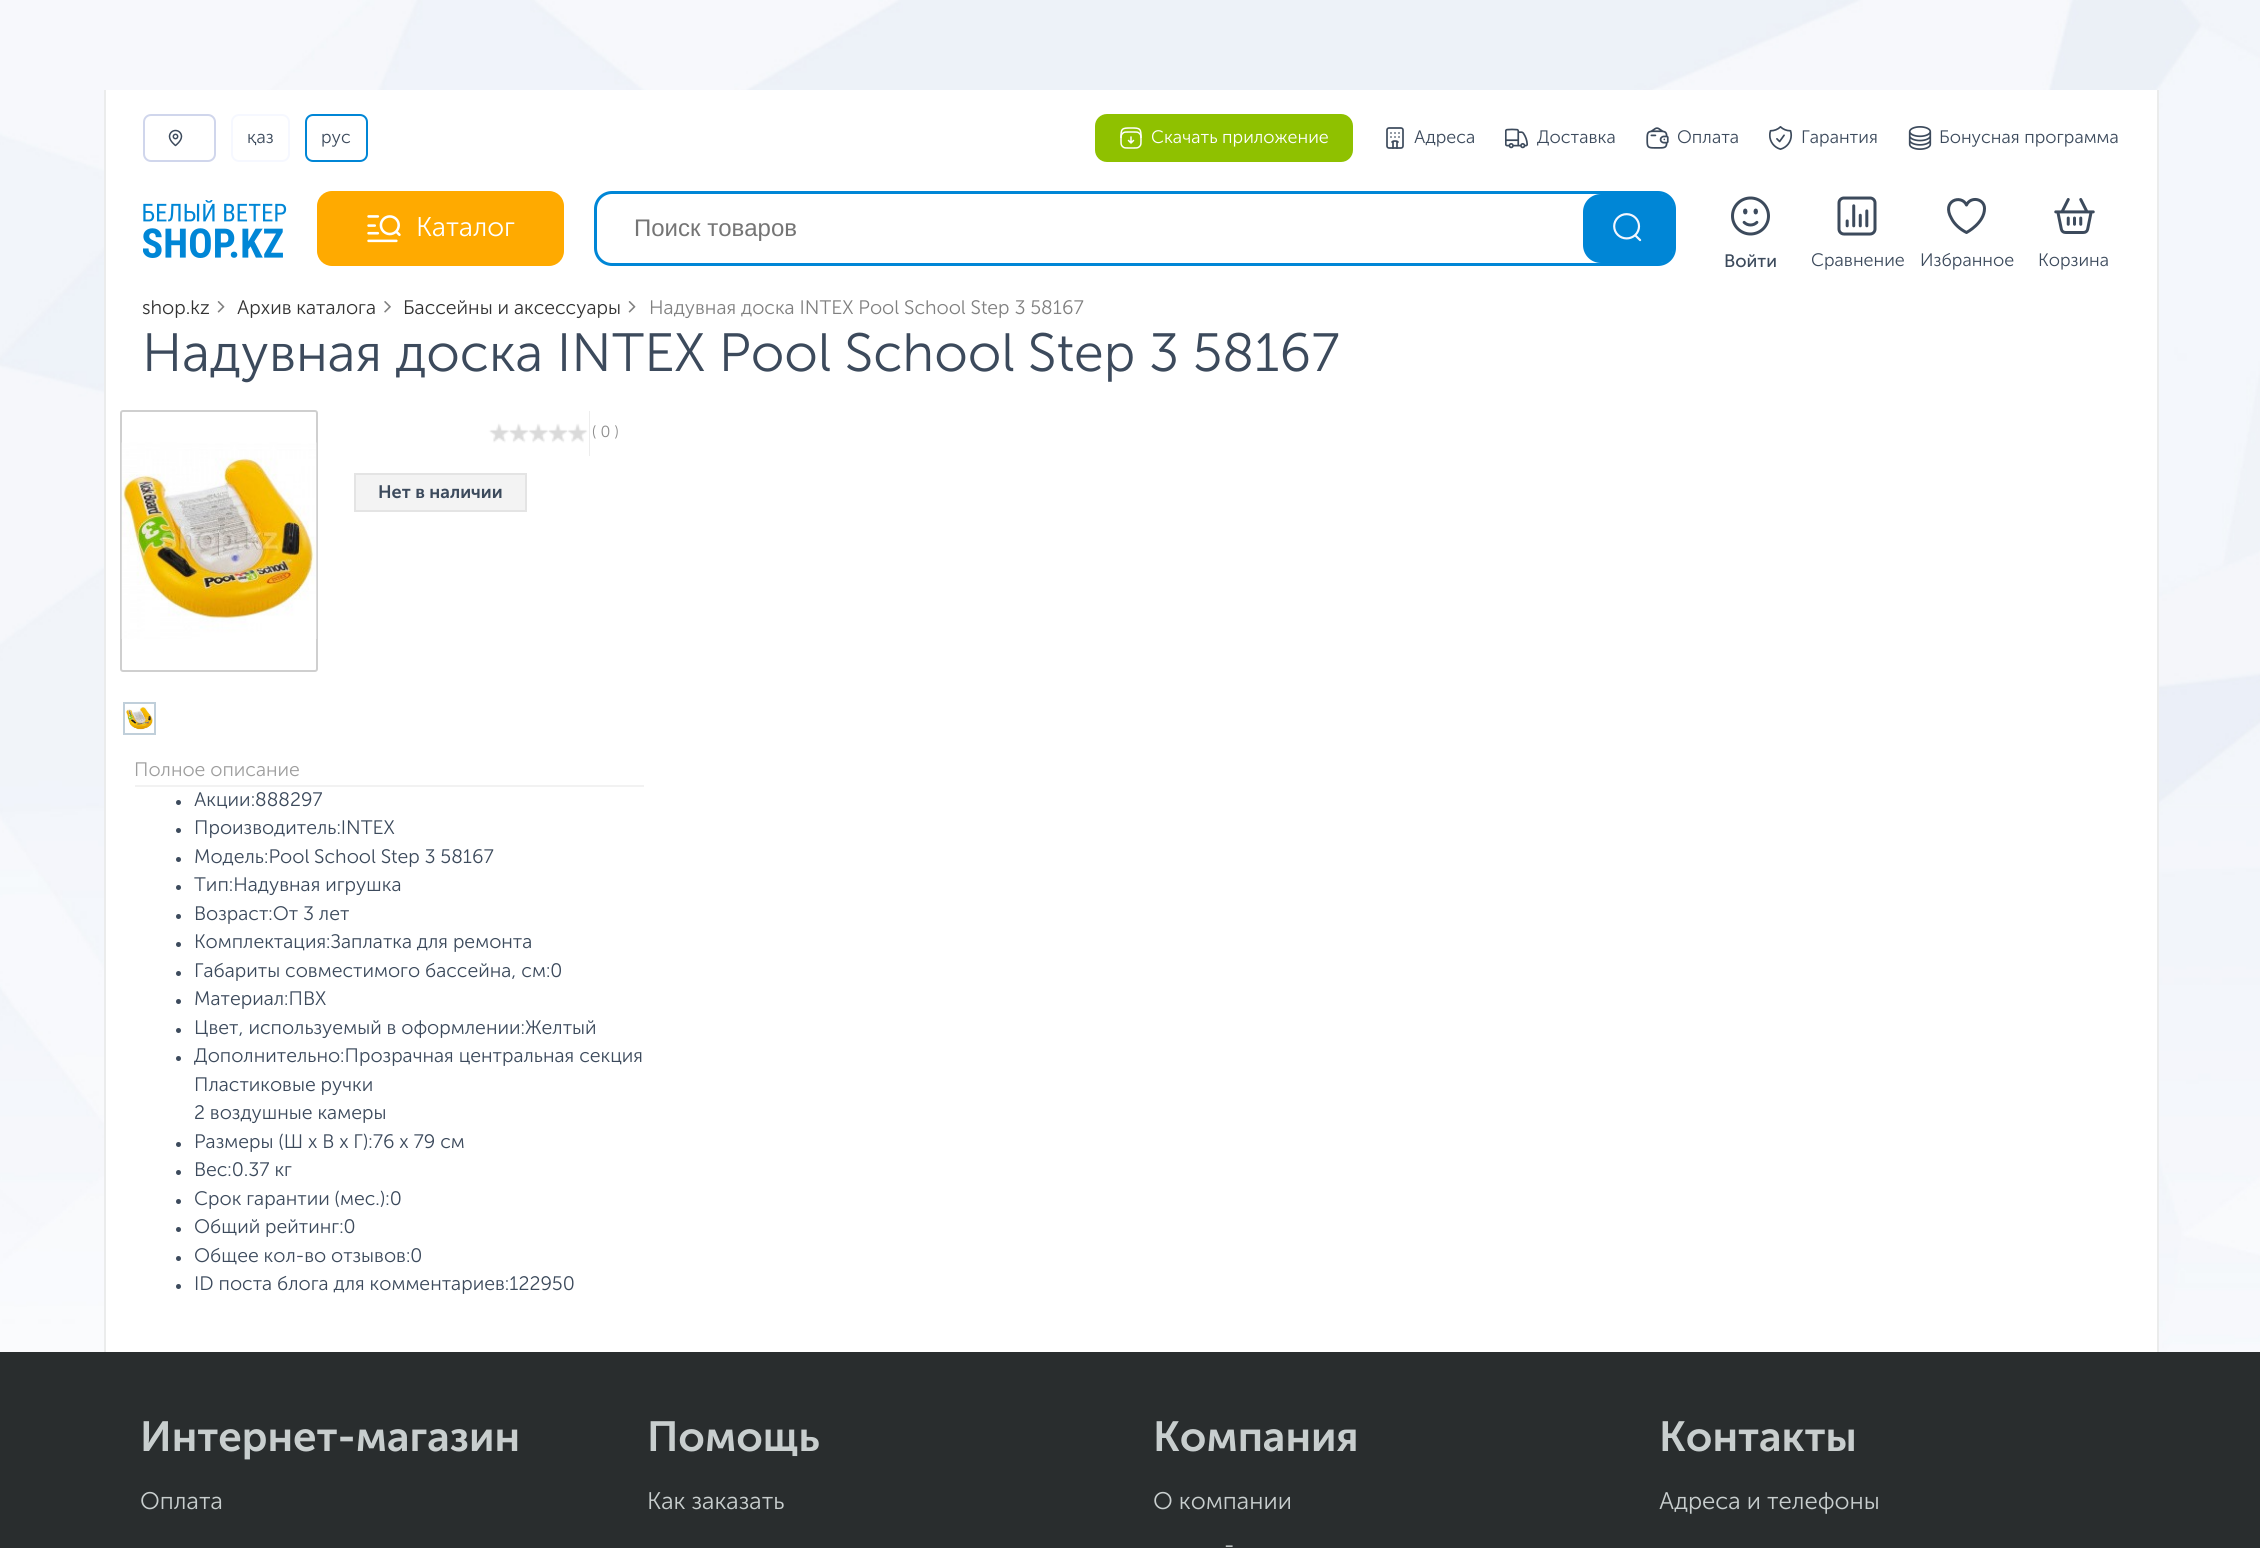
import math
import cairo


def round_path(ctx, x, y, w, h, r):
	ctx.new_sub_path()
	for i, (u, v) in enumerate([(x + w - r, y + h - r), (x + r, y + h - r), (x + r, y + r), (x + w - r, y + r)]):
		ctx.arc(u, v, r, i * math.pi / 2, (i + 1) * math.pi / 2)
	ctx.close_path()

def paste(ctx, path, x, y, w, h):
	ctx.save()
	ctx.set_source_surface(cairo.ImageSurface.create_from_png(path), x, y)
	ctx.rectangle(x, y, w, h)
	ctx.fill()
	ctx.restore()

def draw(ctx):
	ctx.set_source_rgb(1, 1, 1)
	ctx.paint()
	paste(ctx, 'media/1.png', 0, 0, 2260, 1352)
	ctx.set_source_rgb(1, 1, 1)
	ctx.rectangle(106, 90, 2051, 204)
	ctx.fill()
	ctx.set_source_rgb(0.918, 0.922, 0.925)
	ctx.rectangle(2157, 90, 2, 204)
	ctx.rectangle(104, 90, 2, 204)
	ctx.fill()
	round_path(ctx, 144, 115, 71, 46, 7)
	ctx.set_source_rgb(0.816, 0.839, 0.925)
	ctx.stroke()
	paste(ctx, 'media/2.png', 168, 129, 15, 18)
	round_path(ctx, 232, 115, 57, 46, 7)
	ctx.set_source_rgb(0.961, 0.969, 1)
	ctx.stroke()
	ctx.select_font_face('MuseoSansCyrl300')
	ctx.set_font_size(18)
	ctx.set_source_rgb(0.235, 0.29, 0.361)
	ctx.move_to(247, 143)
	ctx.show_text('қаз')
	round_path(ctx, 306, 115, 61, 46, 7)
	ctx.set_source_rgb(0, 0.525, 0.839)
	ctx.stroke()
	ctx.set_source_rgb(0.235, 0.29, 0.361)
	ctx.move_to(321, 143)
	ctx.show_text('рус')
	ctx.set_source_rgb(0.561, 0.757, 0)
	round_path(ctx, 1095, 114, 258, 48, 12)
	ctx.fill()
	paste(ctx, 'media/3.png', 1120, 127, 22, 22)
	ctx.set_source_rgb(1, 1, 1)
	ctx.move_to(1151, 143)
	ctx.show_text('Скачать приложение')
	paste(ctx, 'media/4.png', 1386, 127, 18, 22)
	ctx.set_source_rgb(0.235, 0.29, 0.361)
	ctx.move_to(1414, 143)
	ctx.show_text('Адреса')
	paste(ctx, 'media/5.png', 1505, 128, 23, 21)
	ctx.move_to(1537, 143)
	ctx.show_text('Доставка')
	paste(ctx, 'media/6.png', 1646, 127, 23, 22)
	ctx.move_to(1677, 143)
	ctx.show_text('Оплата')
	paste(ctx, 'media/7.png', 1769, 126, 24, 24)
	ctx.move_to(1801, 143)
	ctx.show_text('Гарантия')
	paste(ctx, 'media/8.png', 1908, 126, 24, 24)
	ctx.move_to(1939, 143)
	ctx.show_text('Бонусная программа')
	paste(ctx, 'media/9.png', 143, 200, 144, 58)
	ctx.set_source_rgb(1, 0.667, 0)
	round_path(ctx, 317, 191, 247, 75, 15)
	ctx.fill()
	paste(ctx, 'media/10.png', 367, 215, 34, 28)
	ctx.set_font_size(27)
	ctx.set_source_rgb(1, 1, 1)
	ctx.move_to(416, 236)
	ctx.show_text('Каталог')
	round_path(ctx, 595.5, 192.5, 1079, 72, 16.5)
	ctx.set_source_rgb(0, 0.525, 0.839)
	ctx.set_line_width(3)
	ctx.stroke()
	ctx.select_font_face('Liberation Sans')
	ctx.set_font_size(24)
	ctx.set_source_rgb(0.459, 0.459, 0.459)
	ctx.move_to(634, 236)
	ctx.show_text('Поиск товаров')
	ctx.set_source_rgb(0, 0.525, 0.839)
	ctx.new_path()
	ctx.move_to(1601, 194)
	ctx.line_to(1661, 194)
	ctx.curve_to(1667.5, 194, 1673, 199.5, 1673, 206)
	ctx.line_to(1673, 251)
	ctx.curve_to(1673, 257.5, 1667.5, 263, 1661, 263)
	ctx.line_to(1601, 263)
	ctx.curve_to(1591, 263, 1583, 255, 1583, 245)
	ctx.line_to(1583, 212)
	ctx.curve_to(1583, 202, 1591, 194, 1601, 194)
	ctx.close_path()
	ctx.fill()
	paste(ctx, 'media/11.png', 1613, 213, 29, 29)
	paste(ctx, 'media/12.png', 1731, 196, 39, 40)
	ctx.select_font_face('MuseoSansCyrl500')
	ctx.set_font_size(18)
	ctx.set_source_rgb(0.235, 0.29, 0.361)
	ctx.move_to(1724, 267)
	ctx.show_text('Войти')
	paste(ctx, 'media/13.png', 1837, 196, 40, 40)
	ctx.select_font_face('MuseoSansCyrl300')
	ctx.move_to(1811, 266)
	ctx.show_text('Сравнение')
	ctx.new_path()
	ctx.move_to(1984.5, 208.5)
	ctx.curve_to(1984.5, 198.5, 1970.5, 196, 1966.5, 205)
	ctx.curve_to(1961.5, 194, 1941, 200.5, 1951.5, 218.5)
	ctx.curve_to(1954.5, 224.5, 1960.5, 229.5, 1966.5, 232.5)
	ctx.curve_to(1966.5, 232.5, 1984.5, 223, 1984.5, 208.5)
	ctx.close_path()
	ctx.set_line_cap(cairo.LINE_CAP_ROUND)
	ctx.set_line_join(cairo.LINE_JOIN_ROUND)
	ctx.stroke()
	ctx.move_to(1920, 266)
	ctx.show_text('Избранное')
	paste(ctx, 'media/14.png', 2054, 198, 41, 36)
	ctx.move_to(2038, 266)
	ctx.show_text('Корзина')
	ctx.set_source_rgb(1, 1, 1)
	ctx.rectangle(106, 294, 2051, 1058)
	ctx.fill()
	ctx.set_source_rgb(0.918, 0.922, 0.925)
	ctx.rectangle(2157, 294, 2, 1058)
	ctx.rectangle(104, 294, 2, 1058)
	ctx.fill()
	ctx.set_font_size(19.5)
	ctx.set_source_rgb(0.2, 0.2, 0.2)
	ctx.move_to(142, 314)
	ctx.show_text('shop.kz')
	paste(ctx, 'media/15.png', 217, 301, 8, 12)
	ctx.move_to(237, 314)
	ctx.show_text('Архив каталога')
	paste(ctx, 'media/16.png', 384, 301, 7, 12)
	ctx.move_to(403, 314)
	ctx.show_text('Бассейны и аксессуары')
	paste(ctx, 'media/15.png', 628, 301, 8, 12)
	ctx.set_source_rgb(0.502, 0.502, 0.502)
	ctx.move_to(649, 314)
	ctx.show_text('Надувная доска INTEX Pool School Step 3 58167')
	ctx.select_font_face('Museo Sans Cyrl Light')
	ctx.set_font_size(53.75)
	ctx.set_source_rgb(0.235, 0.29, 0.361)
	ctx.move_to(142, 371)
	ctx.show_text('Надувная доска INTEX Pool School Step 3 58167')
	round_path(ctx, 121, 411, 196, 260, 2)
	ctx.set_source_rgb(0.812, 0.812, 0.812)
	ctx.set_line_width(2)
	ctx.set_line_cap(cairo.LINE_CAP_BUTT)
	ctx.set_line_join(cairo.LINE_JOIN_MITER)
	ctx.stroke()
	paste(ctx, 'media/17.png', 121, 442, 196, 197)
	ctx.rectangle(124, 703, 31, 31)
	ctx.set_source_rgb(0.753, 0.812, 0.855)
	ctx.stroke()
	paste(ctx, 'media/18.png', 126, 707, 27, 23)
	ctx.set_source_rgb(0.855, 0.855, 0.855)
	ctx.rectangle(488, 411, 102, 45)
	ctx.fill()
	paste(ctx, 'media/19.png', 488, 411, 102, 45)
	ctx.select_font_face('MuseoSansCyrl300')
	ctx.set_font_size(16)
	ctx.set_source_rgb(0.553, 0.553, 0.553)
	ctx.move_to(592, 437)
	ctx.show_text('( 0 )')
	ctx.set_source_rgb(0.953, 0.953, 0.953)
	ctx.rectangle(355, 474, 171, 37)
	ctx.fill_preserve()
	ctx.set_source_rgb(0.894, 0.894, 0.894)
	ctx.stroke()
	ctx.select_font_face('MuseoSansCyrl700', cairo.FONT_SLANT_NORMAL, cairo.FONT_WEIGHT_BOLD)
	ctx.set_font_size(18)
	ctx.set_source_rgb(0.235, 0.29, 0.361)
	ctx.move_to(378, 498)
	ctx.show_text('Нет в наличии')
	ctx.set_source_rgb(0.949, 0.949, 0.949)
	ctx.rectangle(135, 785, 509, 2)
	ctx.fill()
	ctx.select_font_face('MuseoSansCyrl300')
	ctx.set_font_size(19.5)
	ctx.set_source_rgb(0.62, 0.62, 0.62)
	ctx.move_to(134, 776)
	ctx.show_text('Полное описание')
	ctx.set_source_rgb(0.235, 0.29, 0.361)
	ctx.new_path()
	ctx.arc(178.5, 802.5, 2.5, 0, 2 * math.pi)
	ctx.fill()
	ctx.move_to(194, 806)
	ctx.show_text('Акции:888297')
	ctx.new_path()
	ctx.arc(178.5, 830.5, 2.5, 0, 2 * math.pi)
	ctx.fill()
	ctx.move_to(194, 834)
	ctx.show_text('Производитель:INTEX')
	ctx.new_path()
	ctx.arc(178.5, 859.5, 2.5, 0, 2 * math.pi)
	ctx.fill()
	ctx.move_to(194, 863)
	ctx.show_text('Модель:Pool School Step 3 58167')
	ctx.new_path()
	ctx.arc(178.5, 887.5, 2.5, 0, 2 * math.pi)
	ctx.fill()
	ctx.move_to(194, 891)
	ctx.show_text('Тип:Надувная игрушка')
	ctx.new_path()
	ctx.arc(178.5, 916.5, 2.5, 0, 2 * math.pi)
	ctx.fill()
	ctx.move_to(194, 920)
	ctx.show_text('Возраст:От 3 лет')
	ctx.new_path()
	ctx.arc(178.5, 944.5, 2.5, 0, 2 * math.pi)
	ctx.fill()
	ctx.move_to(194, 948)
	ctx.show_text('Комплектация:Заплатка для ремонта')
	ctx.new_path()
	ctx.arc(178.5, 973.5, 2.5, 0, 2 * math.pi)
	ctx.fill()
	ctx.move_to(194, 977)
	ctx.show_text('Габариты совместимого бассейна, см:0')
	ctx.new_path()
	ctx.arc(178.5, 1001.5, 2.5, 0, 2 * math.pi)
	ctx.fill()
	ctx.move_to(194, 1005)
	ctx.show_text('Материал:ПВХ')
	ctx.new_path()
	ctx.arc(178.5, 1030.5, 2.5, 0, 2 * math.pi)
	ctx.fill()
	ctx.move_to(194, 1034)
	ctx.show_text('Цвет, используемый в оформлении:Желтый')
	ctx.new_path()
	ctx.arc(178.5, 1058.5, 2.5, 0, 2 * math.pi)
	ctx.fill()
	for x, y, s in [
		(194, 1062, 'Дополнительно:Прозрачная центральная секция'),
		(194, 1091, 'Пластиковые ручки'),
		(194, 1119, '2 воздушные камеры'),
	]:
		ctx.move_to(x, y)
		ctx.show_text(s)
	ctx.new_path()
	ctx.arc(178.5, 1144.5, 2.5, 0, 2 * math.pi)
	ctx.fill()
	ctx.move_to(194, 1148)
	ctx.show_text('Размеры (Ш х В х Г):76 х 79 см')
	ctx.new_path()
	ctx.arc(178.5, 1172.5, 2.5, 0, 2 * math.pi)
	ctx.fill()
	ctx.move_to(194, 1176)
	ctx.show_text('Вес:0.37 кг')
	ctx.new_path()
	ctx.arc(178.5, 1201.5, 2.5, 0, 2 * math.pi)
	ctx.fill()
	ctx.move_to(194, 1205)
	ctx.show_text('Срок гарантии (мес.):0')
	ctx.new_path()
	ctx.arc(178.5, 1229.5, 2.5, 0, 2 * math.pi)
	ctx.fill()
	ctx.move_to(194, 1233)
	ctx.show_text('Общий рейтинг:0')
	ctx.new_path()
	ctx.arc(178.5, 1258.5, 2.5, 0, 2 * math.pi)
	ctx.fill()
	ctx.move_to(194, 1262)
	ctx.show_text('Общее кол-во отзывов:0')
	ctx.new_path()
	ctx.arc(178.5, 1286.5, 2.5, 0, 2 * math.pi)
	ctx.fill()
	ctx.move_to(194, 1290)
	ctx.show_text('ID поста блога для комментариев:122950')
	ctx.set_source_rgb(0.161, 0.176, 0.18)
	ctx.rectangle(0, 1352, 2260, 196)
	ctx.fill()
	ctx.select_font_face('MuseoSansCyrl700', cairo.FONT_SLANT_NORMAL, cairo.FONT_WEIGHT_BOLD)
	ctx.set_font_size(42)
	ctx.set_source_rgb(0.784, 0.808, 0.808)
	ctx.move_to(140, 1451)
	ctx.show_text('Интернет-магазин')
	ctx.select_font_face('MuseoSansCyrl300')
	ctx.set_font_size(24)
	ctx.move_to(140, 1509)
	ctx.show_text('Оплата')
	ctx.select_font_face('MuseoSansCyrl700', cairo.FONT_SLANT_NORMAL, cairo.FONT_WEIGHT_BOLD)
	ctx.set_font_size(42)
	ctx.move_to(647, 1451)
	ctx.show_text('Помощь')
	ctx.select_font_face('MuseoSansCyrl300')
	ctx.set_font_size(24)
	ctx.move_to(647, 1509)
	ctx.show_text('Как заказать')
	ctx.select_font_face('MuseoSansCyrl700', cairo.FONT_SLANT_NORMAL, cairo.FONT_WEIGHT_BOLD)
	ctx.set_font_size(42)
	ctx.move_to(1153, 1451)
	ctx.show_text('Компания')
	ctx.select_font_face('MuseoSansCyrl300')
	ctx.set_font_size(24)
	ctx.move_to(1153, 1509)
	ctx.show_text('О компании')
	ctx.move_to(1224, 1553)
	ctx.show_text('-')
	ctx.select_font_face('MuseoSansCyrl700', cairo.FONT_SLANT_NORMAL, cairo.FONT_WEIGHT_BOLD)
	ctx.set_font_size(42)
	ctx.move_to(1659, 1451)
	ctx.show_text('Контакты')
	ctx.select_font_face('MuseoSansCyrl300')
	ctx.set_font_size(24)
	ctx.move_to(1659, 1509)
	ctx.show_text('Адреса и телефоны')


surface = cairo.ImageSurface(cairo.FORMAT_RGB24, 2260, 1548)
ctx = cairo.Context(surface)
options = cairo.FontOptions()
options.set_hint_metrics(cairo.HINT_METRICS_OFF)
options.set_hint_style(cairo.HINT_STYLE_NONE)
ctx.set_font_options(options)
ctx.set_miter_limit(4)
draw(ctx)
surface.write_to_png('image.png')
